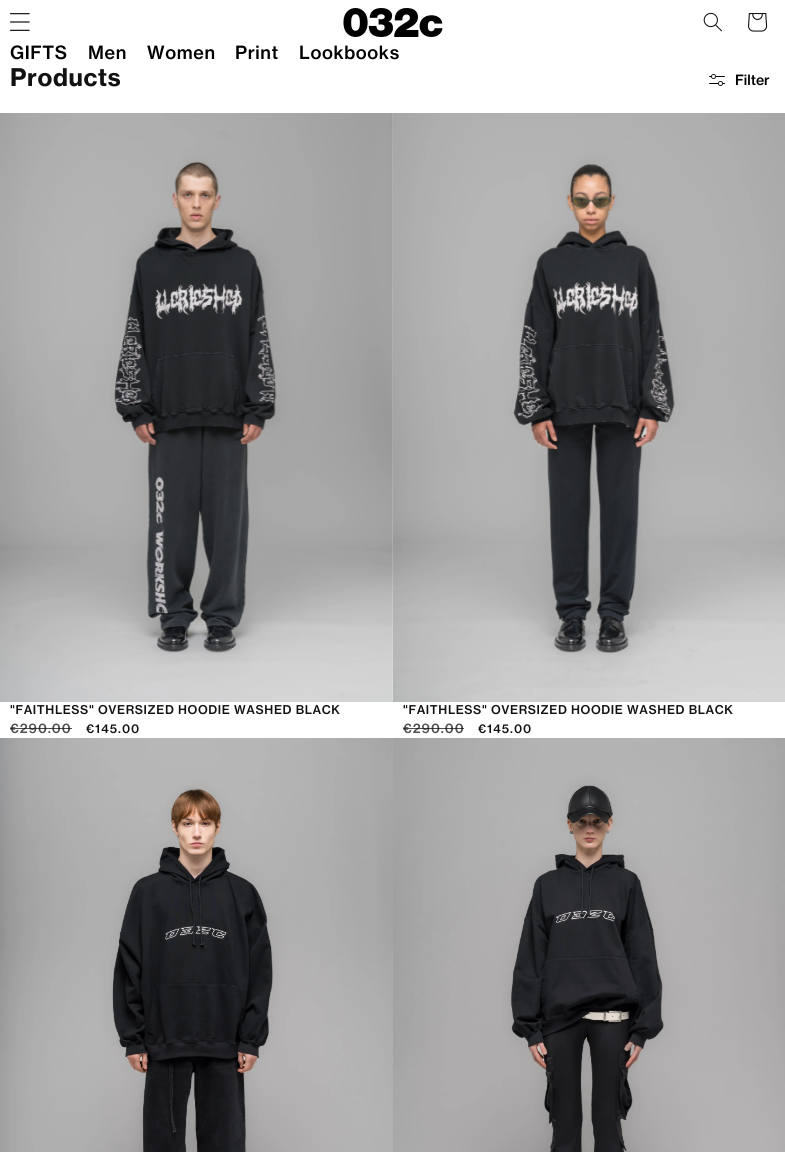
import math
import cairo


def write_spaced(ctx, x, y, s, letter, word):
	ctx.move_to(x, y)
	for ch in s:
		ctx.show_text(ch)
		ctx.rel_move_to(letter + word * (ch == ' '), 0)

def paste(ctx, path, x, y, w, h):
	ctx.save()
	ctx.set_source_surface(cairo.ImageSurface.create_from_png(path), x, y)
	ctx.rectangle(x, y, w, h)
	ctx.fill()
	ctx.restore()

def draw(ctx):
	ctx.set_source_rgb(1, 1, 1)
	ctx.paint()
	paste(ctx, 'media/1.png', 9, 13, 21, 18)
	paste(ctx, 'media/2.png', 343, 8, 100, 29)
	paste(ctx, 'media/3.png', 703, 12, 19, 20)
	paste(ctx, 'media/4.png', 748, 13, 20, 19)
	ctx.select_font_face('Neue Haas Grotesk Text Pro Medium')
	ctx.set_font_size(18)
	ctx.set_source_rgb(0, 0, 0)
	for x, y, s in [
		(10, 59, 'GIFTS'),
		(88, 59, 'Men'),
		(147, 59, 'Women'),
		(235, 59, 'Print'),
		(299, 59, 'Lookbooks'),
	]:
		write_spaced(ctx, x, y, s, 0.6, 0)
	ctx.select_font_face('Neue Haas Grotesk Text Pro', cairo.FONT_SLANT_NORMAL, cairo.FONT_WEIGHT_BOLD)
	ctx.set_font_size(24)
	ctx.set_source_rgb(0.071, 0.071, 0.071)
	write_spaced(ctx, 10, 86, 'Products', 0.6, 0)
	paste(ctx, 'media/5.png', 709, 74, 16, 12)
	ctx.select_font_face('Neue Haas Grotesk Text Pro Medium')
	ctx.set_font_size(14)
	ctx.set_source_rgb(0, 0, 0)
	ctx.move_to(735, 85)
	ctx.show_text('Filter')
	paste(ctx, 'media/6.png', 0, 113, 393, 589)
	ctx.set_font_size(12)
	ctx.set_source_rgb(0.071, 0.071, 0.071)
	write_spaced(ctx, 10, 714, '"FAITHLESS" OVERSIZED HOODIE WASHED BLACK', 0.6, 0)
	ctx.set_font_size(13)
	ctx.set_source_rgb(0.302, 0.302, 0.302)
	write_spaced(ctx, 10, 733, '€290.00', 1, 0)
	ctx.set_source_rgba(0.071, 0.071, 0.071, 0.75)
	ctx.rectangle(10, 728, 62, 1)
	ctx.fill()
	ctx.set_font_size(12)
	ctx.set_source_rgb(0.071, 0.071, 0.071)
	write_spaced(ctx, 86, 733, '€145.00', 1, 0)
	paste(ctx, 'media/7.png', 393, 113, 392, 589)
	write_spaced(ctx, 403, 714, '"FAITHLESS" OVERSIZED HOODIE WASHED BLACK', 0.6, 0)
	ctx.set_font_size(13)
	ctx.set_source_rgb(0.302, 0.302, 0.302)
	write_spaced(ctx, 403, 733, '€290.00', 1, 0)
	ctx.set_source_rgba(0.071, 0.071, 0.071, 0.75)
	ctx.rectangle(403, 728, 61, 1)
	ctx.fill()
	ctx.set_font_size(12)
	ctx.set_source_rgb(0.071, 0.071, 0.071)
	write_spaced(ctx, 478, 733, '€145.00', 1, 0)
	paste(ctx, 'media/8.png', 0, 738, 393, 414)
	paste(ctx, 'media/9.png', 393, 738, 392, 414)


surface = cairo.ImageSurface(cairo.FORMAT_RGB24, 785, 1152)
ctx = cairo.Context(surface)
options = cairo.FontOptions()
options.set_hint_metrics(cairo.HINT_METRICS_OFF)
options.set_hint_style(cairo.HINT_STYLE_NONE)
ctx.set_font_options(options)
ctx.set_miter_limit(4)
draw(ctx)
surface.write_to_png('image.png')
